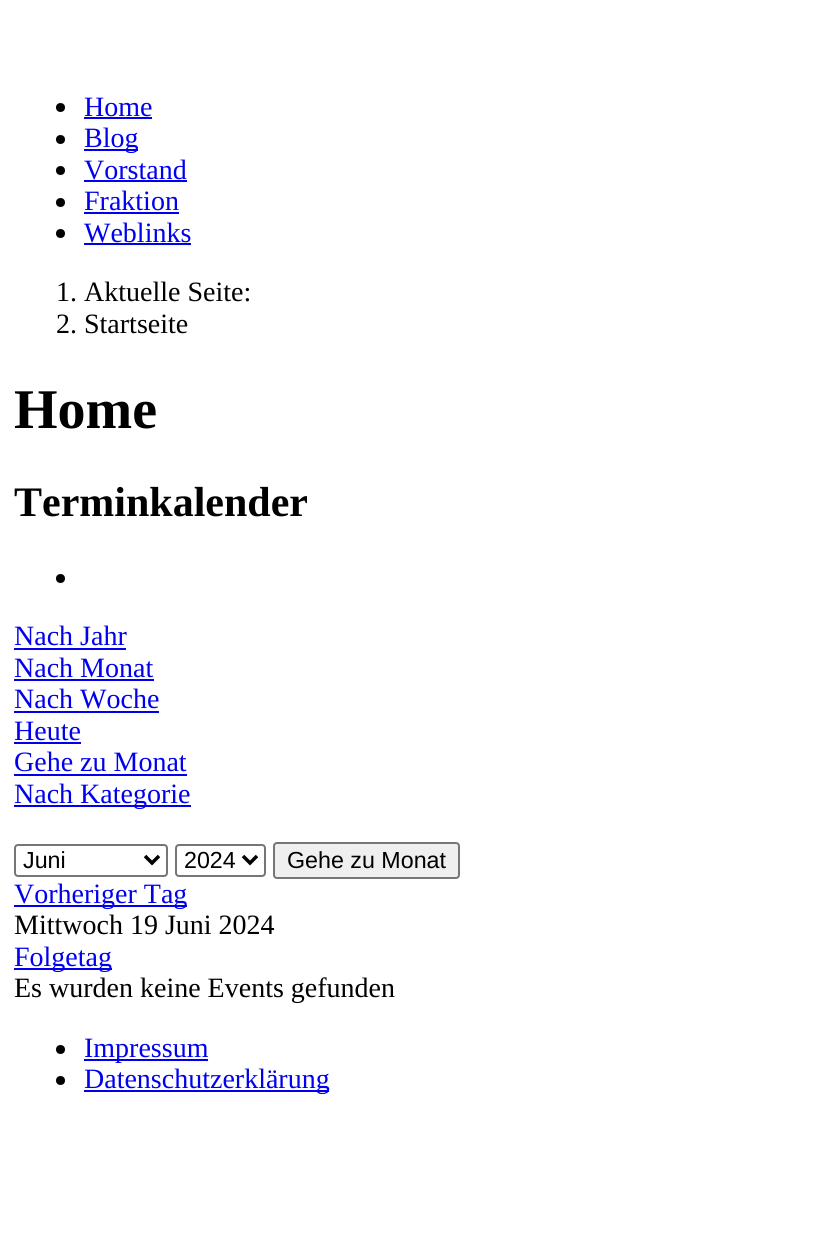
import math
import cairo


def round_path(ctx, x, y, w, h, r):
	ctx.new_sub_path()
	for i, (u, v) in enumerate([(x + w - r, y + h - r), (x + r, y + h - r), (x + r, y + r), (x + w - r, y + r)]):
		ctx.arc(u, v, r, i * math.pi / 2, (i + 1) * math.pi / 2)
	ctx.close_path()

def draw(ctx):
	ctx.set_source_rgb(1, 1, 1)
	ctx.paint()
	ctx.set_source_rgb(0, 0, 0)
	ctx.arc(60.5, 107.5, 4.5, 0, 2 * math.pi)
	ctx.fill()
	ctx.select_font_face('Liberation Serif')
	ctx.set_font_size(28)
	ctx.set_source_rgb(0, 0, 0.933)
	ctx.move_to(84, 116)
	ctx.show_text('Home')
	ctx.rectangle(84, 117, 68, 2)
	ctx.fill()
	ctx.set_source_rgb(0, 0, 0)
	ctx.arc(60.5, 139.5, 4.5, 0, 2 * math.pi)
	ctx.fill()
	ctx.set_source_rgb(0, 0, 0.933)
	ctx.rectangle(84, 149, 54, 2)
	ctx.fill()
	ctx.move_to(84, 147)
	ctx.show_text('Blog')
	ctx.set_source_rgb(0, 0, 0)
	ctx.new_path()
	ctx.arc(60.5, 170.5, 4.5, 0, 2 * math.pi)
	ctx.fill()
	ctx.set_source_rgb(0, 0, 0.933)
	ctx.move_to(84, 179)
	ctx.show_text('Vorstand')
	ctx.rectangle(84, 180, 103, 2)
	ctx.fill()
	ctx.set_source_rgb(0, 0, 0)
	ctx.arc(60.5, 202.5, 4.5, 0, 2 * math.pi)
	ctx.fill()
	ctx.set_source_rgb(0, 0, 0.933)
	ctx.move_to(84, 210)
	ctx.show_text('Fraktion')
	ctx.rectangle(84, 212, 95, 2)
	ctx.fill()
	ctx.set_source_rgb(0, 0, 0)
	ctx.arc(60.5, 233.5, 4.5, 0, 2 * math.pi)
	ctx.fill()
	ctx.set_source_rgb(0, 0, 0.933)
	ctx.move_to(84, 242)
	ctx.show_text('Weblinks')
	ctx.rectangle(84, 243, 107, 2)
	ctx.fill()
	ctx.set_source_rgb(0, 0, 0)
	ctx.move_to(56, 301)
	ctx.show_text('1. Aktuelle Seite:')
	ctx.move_to(56, 333)
	ctx.show_text('2. Startseite')
	ctx.select_font_face('Liberation Serif', cairo.FONT_SLANT_NORMAL, cairo.FONT_WEIGHT_BOLD)
	ctx.set_font_size(56)
	ctx.move_to(14, 428)
	ctx.show_text('Home')
	ctx.set_font_size(42)
	ctx.move_to(14, 516)
	ctx.show_text('Terminkalender')
	ctx.new_path()
	ctx.arc(60.5, 578.5, 4.5, 0, 2 * math.pi)
	ctx.fill()
	ctx.select_font_face('Liberation Serif')
	ctx.set_font_size(28)
	ctx.set_source_rgb(0, 0, 0.933)
	ctx.move_to(14, 645)
	ctx.show_text('Nach Jahr')
	ctx.rectangle(14, 648, 112, 2)
	ctx.fill()
	ctx.move_to(14, 677)
	ctx.show_text('Nach Monat')
	ctx.rectangle(14, 679, 140, 2)
	ctx.fill()
	ctx.move_to(14, 708)
	ctx.show_text('Nach Woche')
	ctx.rectangle(14, 711, 145, 2)
	ctx.fill()
	ctx.move_to(14, 740)
	ctx.show_text('Heute')
	ctx.rectangle(14, 742, 67, 2)
	ctx.fill()
	ctx.move_to(14, 771)
	ctx.show_text('Gehe zu Monat')
	ctx.rectangle(14, 774, 173, 2)
	ctx.fill()
	ctx.rectangle(14, 805, 177, 2)
	ctx.fill()
	ctx.move_to(14, 803)
	ctx.show_text('Nach Kategorie')
	round_path(ctx, 15, 845, 152, 31, 3)
	ctx.set_source_rgb(0.463, 0.463, 0.463)
	ctx.stroke()
	ctx.new_path()
	ctx.move_to(145, 856)
	ctx.line_to(152, 863)
	ctx.line_to(159, 856)
	ctx.set_source_rgb(0, 0, 0)
	ctx.set_line_width(3.5)
	ctx.stroke()
	ctx.select_font_face('Liberation Sans')
	ctx.set_font_size(23.25)
	ctx.move_to(23, 868)
	ctx.show_text('Juni')
	round_path(ctx, 176, 845, 89, 31, 3)
	ctx.set_source_rgb(0.463, 0.463, 0.463)
	ctx.set_line_width(2)
	ctx.stroke()
	ctx.new_path()
	ctx.move_to(243, 856)
	ctx.line_to(250, 863)
	ctx.line_to(257, 856)
	ctx.set_source_rgb(0, 0, 0)
	ctx.set_line_width(3.5)
	ctx.stroke()
	ctx.move_to(184, 868)
	ctx.show_text('2024')
	ctx.set_source_rgb(0.937, 0.937, 0.937)
	round_path(ctx, 274, 843, 185, 35, 3)
	ctx.fill_preserve()
	ctx.set_source_rgb(0.463, 0.463, 0.463)
	ctx.set_line_width(2)
	ctx.stroke()
	ctx.set_source_rgb(0, 0, 0)
	ctx.move_to(287, 868)
	ctx.show_text('Gehe zu Monat')
	ctx.set_source_rgb(0, 0, 0.933)
	ctx.rectangle(14, 905, 173, 2)
	ctx.fill()
	ctx.select_font_face('Liberation Serif')
	ctx.set_font_size(28)
	ctx.move_to(14, 903)
	ctx.show_text('Vorheriger Tag')
	ctx.set_source_rgb(0, 0, 0)
	ctx.move_to(14, 934)
	ctx.show_text('Mittwoch 19 Juni 2024')
	ctx.set_source_rgb(0, 0, 0.933)
	ctx.rectangle(14, 968, 98, 2)
	ctx.fill()
	ctx.move_to(14, 966)
	ctx.show_text('Folgetag')
	ctx.set_source_rgb(0, 0, 0)
	ctx.move_to(14, 997)
	ctx.show_text('Es wurden keine Events gefunden')
	ctx.new_path()
	ctx.arc(60.5, 1049.5, 4.5, 0, 2 * math.pi)
	ctx.fill()
	ctx.set_source_rgb(0, 0, 0.933)
	ctx.rectangle(84, 1059, 124, 2)
	ctx.fill()
	ctx.move_to(84, 1057)
	ctx.show_text('Impressum')
	ctx.set_source_rgb(0, 0, 0)
	ctx.new_path()
	ctx.arc(60.5, 1080.5, 4.5, 0, 2 * math.pi)
	ctx.fill()
	ctx.set_source_rgb(0, 0, 0.933)
	ctx.rectangle(84, 1090, 245, 2)
	ctx.fill()
	ctx.move_to(84, 1088)
	ctx.show_text('Datenschutzerklärung')


surface = cairo.ImageSurface(cairo.FORMAT_RGB24, 839, 1260)
ctx = cairo.Context(surface)
options = cairo.FontOptions()
options.set_hint_metrics(cairo.HINT_METRICS_OFF)
options.set_hint_style(cairo.HINT_STYLE_NONE)
ctx.set_font_options(options)
ctx.set_miter_limit(4)
draw(ctx)
surface.write_to_png('image.png')
